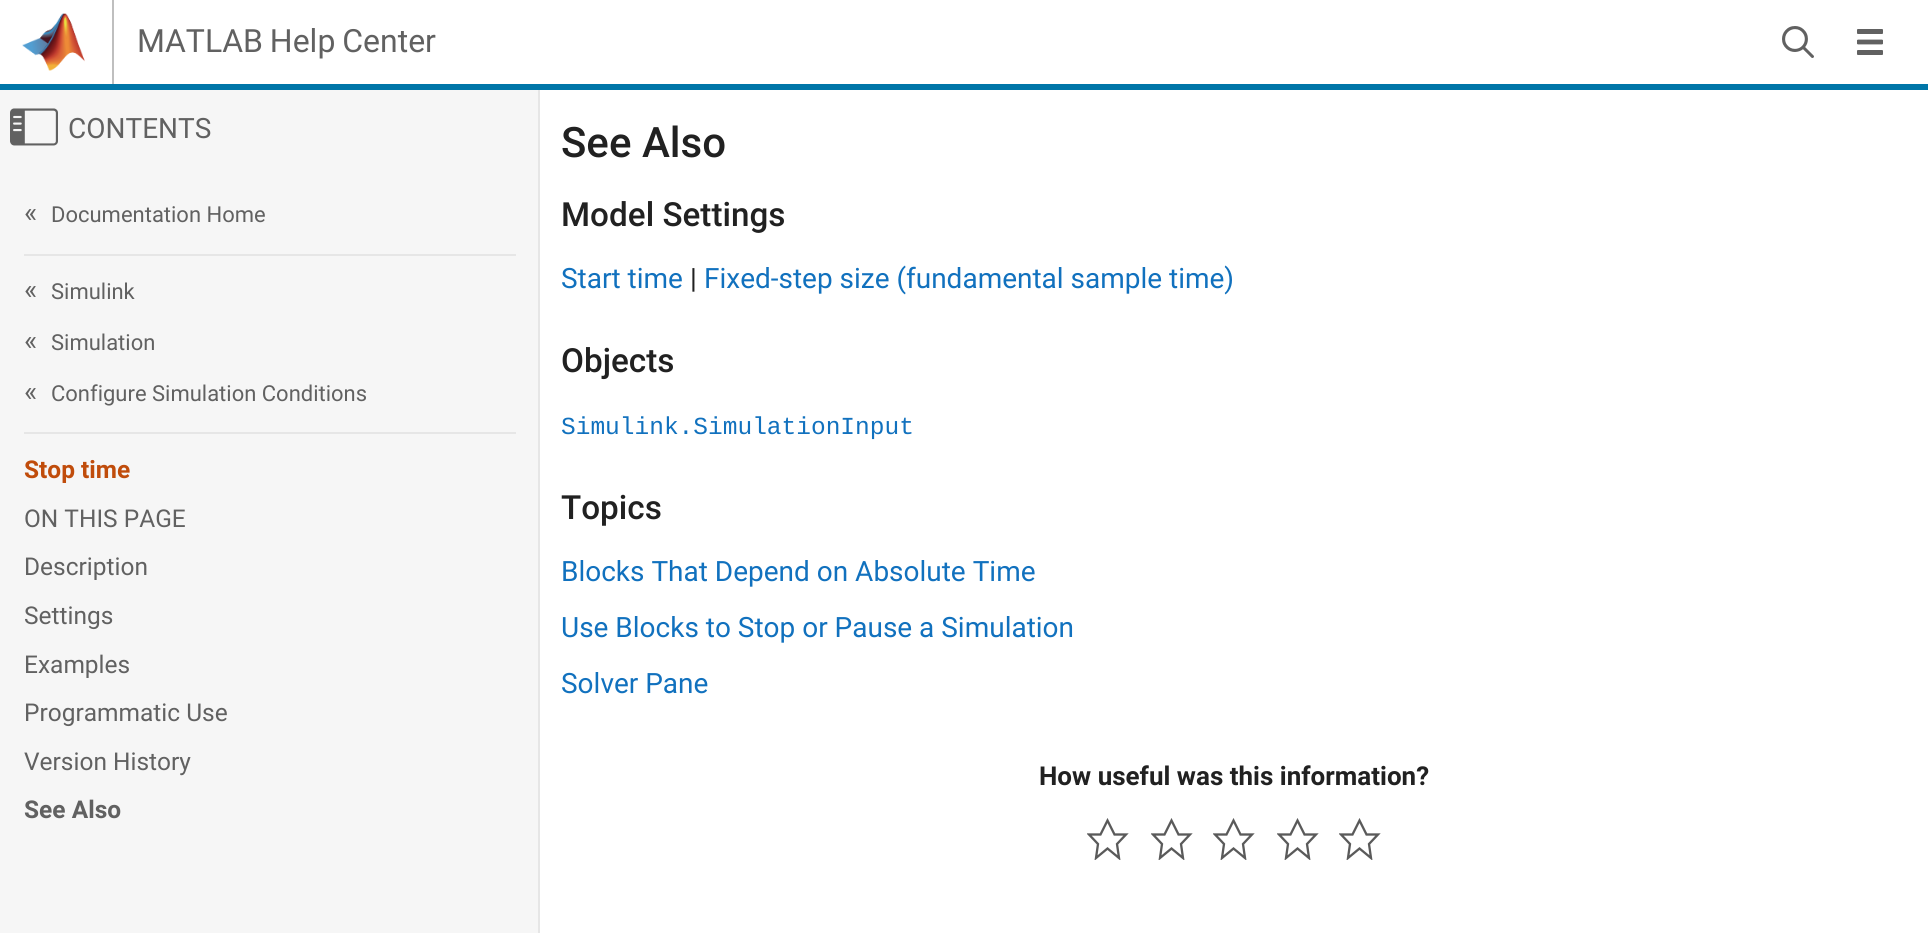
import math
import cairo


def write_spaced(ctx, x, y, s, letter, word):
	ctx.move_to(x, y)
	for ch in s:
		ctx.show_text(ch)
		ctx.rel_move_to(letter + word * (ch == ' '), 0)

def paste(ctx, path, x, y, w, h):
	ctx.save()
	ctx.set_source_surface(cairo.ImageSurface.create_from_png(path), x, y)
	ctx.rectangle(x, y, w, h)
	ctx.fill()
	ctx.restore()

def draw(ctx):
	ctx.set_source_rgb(0.961, 0.961, 0.961)
	ctx.paint()
	ctx.set_source_rgb(1, 1, 1)
	ctx.rectangle(0, 0, 1928, 84)
	ctx.fill()
	ctx.set_source_rgb(0, 0.463, 0.659)
	ctx.rectangle(0, 84, 1928, 6)
	ctx.fill()
	ctx.set_source_rgb(0.749, 0.749, 0.749)
	ctx.rectangle(112, 0, 2, 84)
	ctx.fill()
	paste(ctx, 'media/1.png', 22, 13, 63, 58)
	ctx.select_font_face('Roboto')
	ctx.set_font_size(32)
	ctx.set_source_rgb(0.38, 0.38, 0.38)
	write_spaced(ctx, 137, 52, 'MATLAB Help Center', 0, -1)
	paste(ctx, 'media/2.png', 1782, 26, 32, 32)
	paste(ctx, 'media/3.png', 1857, 29, 26, 26)
	ctx.set_source_rgb(0.902, 0.902, 0.902)
	ctx.rectangle(538, 90, 2, 843)
	ctx.fill()
	paste(ctx, 'media/4.png', 10, 108, 48, 38)
	ctx.set_font_size(28)
	ctx.set_source_rgb(0.38, 0.38, 0.38)
	ctx.move_to(68, 138)
	ctx.show_text('CONTENTS')
	ctx.set_source_rgb(0.902, 0.902, 0.902)
	ctx.rectangle(24, 254, 492, 2)
	ctx.fill()
	ctx.set_source_rgb(0.38, 0.38, 0.38)
	ctx.move_to(24, 222)
	ctx.show_text('«')
	ctx.set_font_size(22)
	ctx.move_to(51, 222)
	ctx.show_text('Documentation Home')
	ctx.set_source_rgb(0.902, 0.902, 0.902)
	ctx.rectangle(24, 432, 492, 2)
	ctx.fill()
	ctx.set_font_size(28)
	ctx.set_source_rgb(0.38, 0.38, 0.38)
	ctx.move_to(24, 299)
	ctx.show_text('«')
	ctx.set_font_size(22)
	ctx.move_to(51, 299)
	ctx.show_text('Simulink')
	ctx.set_font_size(28)
	ctx.move_to(24, 350)
	ctx.show_text('«')
	ctx.set_font_size(22)
	ctx.move_to(51, 350)
	ctx.show_text('Simulation')
	ctx.set_font_size(28)
	ctx.move_to(24, 401)
	ctx.show_text('«')
	ctx.set_font_size(22)
	ctx.move_to(51, 401)
	ctx.show_text('Configure Simulation Conditions')
	ctx.select_font_face('Roboto', cairo.FONT_SLANT_NORMAL, cairo.FONT_WEIGHT_BOLD)
	ctx.set_font_size(24.5)
	ctx.set_source_rgb(0.753, 0.298, 0.043)
	ctx.move_to(24, 478)
	ctx.show_text('Stop time')
	ctx.select_font_face('Roboto')
	ctx.set_source_rgb(0.38, 0.38, 0.38)
	for x, y, s in [
		(24, 527, 'ON THIS PAGE'),
		(24, 575, 'Description'),
		(24, 624, 'Settings'),
		(24, 673, 'Examples'),
		(24, 721, 'Programmatic Use'),
		(24, 770, 'Version History'),
	]:
		ctx.move_to(x, y)
		ctx.show_text(s)
	ctx.select_font_face('Roboto', cairo.FONT_SLANT_NORMAL, cairo.FONT_WEIGHT_BOLD)
	ctx.move_to(24, 818)
	ctx.show_text('See Also')
	ctx.set_source_rgb(1, 1, 1)
	ctx.rectangle(540, 90, 1388, 843)
	ctx.fill()
	ctx.select_font_face('Roboto Medium')
	ctx.set_font_size(42)
	ctx.set_source_rgb(0.129, 0.129, 0.129)
	ctx.move_to(561, 157)
	ctx.show_text('See Also')
	ctx.set_font_size(33.25)
	ctx.move_to(561, 226)
	ctx.show_text('Model Settings')
	ctx.select_font_face('Roboto')
	ctx.set_font_size(28)
	ctx.set_source_rgb(0.067, 0.443, 0.745)
	ctx.move_to(561, 288)
	ctx.show_text('Start time')
	ctx.set_source_rgb(0.129, 0.129, 0.129)
	ctx.move_to(690, 288)
	ctx.show_text('|')
	ctx.set_source_rgb(0.067, 0.443, 0.745)
	ctx.move_to(704, 288)
	ctx.show_text('Fixed-step size (fundamental sample time)')
	ctx.select_font_face('Roboto Medium')
	ctx.set_font_size(33.25)
	ctx.set_source_rgb(0.129, 0.129, 0.129)
	ctx.move_to(561, 372)
	ctx.show_text('Objects')
	ctx.select_font_face('Liberation Mono')
	ctx.set_font_size(24.5)
	ctx.set_source_rgb(0.067, 0.443, 0.745)
	ctx.move_to(561, 434)
	ctx.show_text('Simulink.SimulationInput')
	ctx.select_font_face('Roboto Medium')
	ctx.set_font_size(33.25)
	ctx.set_source_rgb(0.129, 0.129, 0.129)
	ctx.move_to(561, 519)
	ctx.show_text('Topics')
	ctx.select_font_face('Roboto')
	ctx.set_font_size(28)
	ctx.set_source_rgb(0.067, 0.443, 0.745)
	for x, y, s in [
		(561, 581, 'Blocks That Depend on Absolute Time'),
		(561, 637, 'Use Blocks to Stop or Pause a Simulation'),
		(561, 693, 'Solver Pane'),
	]:
		ctx.move_to(x, y)
		ctx.show_text(s)
	ctx.select_font_face('Roboto', cairo.FONT_SLANT_NORMAL, cairo.FONT_WEIGHT_BOLD)
	ctx.set_font_size(26)
	ctx.set_source_rgb(0.129, 0.129, 0.129)
	ctx.move_to(1039, 785)
	ctx.show_text('How useful was this information?')
	ctx.save()
	ctx.rectangle(1087, 818, 42, 42)
	ctx.clip()
	ctx.new_path()
	ctx.move_to(1100.5, 834.5)
	ctx.line_to(1089, 834.5)
	ctx.line_to(1098, 844)
	ctx.line_to(1096, 858)
	ctx.line_to(1107.5, 848.5)
	ctx.line_to(1119, 858)
	ctx.line_to(1117, 844)
	ctx.line_to(1126, 834.5)
	ctx.line_to(1114.5, 834.5)
	ctx.line_to(1107.5, 820.5)
	ctx.close_path()
	ctx.set_source_rgb(0.353, 0.353, 0.353)
	ctx.set_line_width(2.3)
	ctx.stroke()
	ctx.restore()
	ctx.save()
	ctx.rectangle(1151, 818, 42, 42)
	ctx.clip()
	ctx.new_path()
	ctx.move_to(1164.5, 834.5)
	ctx.line_to(1153, 834.5)
	ctx.line_to(1162, 844)
	ctx.line_to(1160, 858)
	ctx.line_to(1171.5, 848.5)
	ctx.line_to(1183, 858)
	ctx.line_to(1181, 844)
	ctx.line_to(1190, 834.5)
	ctx.line_to(1178.5, 834.5)
	ctx.line_to(1171.5, 820.5)
	ctx.close_path()
	ctx.set_source_rgb(0.353, 0.353, 0.353)
	ctx.set_line_width(2.3)
	ctx.stroke()
	ctx.restore()
	ctx.save()
	ctx.rectangle(1213, 818, 42, 42)
	ctx.clip()
	ctx.new_path()
	ctx.move_to(1226.5, 834.5)
	ctx.line_to(1215, 834.5)
	ctx.line_to(1224, 844)
	ctx.line_to(1222, 858)
	ctx.line_to(1233.5, 848.5)
	ctx.line_to(1245, 858)
	ctx.line_to(1243, 844)
	ctx.line_to(1252, 834.5)
	ctx.line_to(1240.5, 834.5)
	ctx.line_to(1233.5, 820.5)
	ctx.close_path()
	ctx.set_source_rgb(0.353, 0.353, 0.353)
	ctx.set_line_width(2.3)
	ctx.stroke()
	ctx.restore()
	ctx.save()
	ctx.rectangle(1277, 818, 42, 42)
	ctx.clip()
	ctx.new_path()
	ctx.move_to(1290.5, 834.5)
	ctx.line_to(1279, 834.5)
	ctx.line_to(1288, 844)
	ctx.line_to(1286, 858)
	ctx.line_to(1297.5, 848.5)
	ctx.line_to(1309, 858)
	ctx.line_to(1307, 844)
	ctx.line_to(1316, 834.5)
	ctx.line_to(1304.5, 834.5)
	ctx.line_to(1297.5, 820.5)
	ctx.close_path()
	ctx.set_source_rgb(0.353, 0.353, 0.353)
	ctx.set_line_width(2.3)
	ctx.stroke()
	ctx.restore()
	ctx.save()
	ctx.rectangle(1339, 818, 42, 42)
	ctx.clip()
	ctx.new_path()
	ctx.move_to(1352.5, 834.5)
	ctx.line_to(1341, 834.5)
	ctx.line_to(1350, 844)
	ctx.line_to(1348, 858)
	ctx.line_to(1359.5, 848.5)
	ctx.line_to(1371, 858)
	ctx.line_to(1369, 844)
	ctx.line_to(1378, 834.5)
	ctx.line_to(1366.5, 834.5)
	ctx.line_to(1359.5, 820.5)
	ctx.close_path()
	ctx.set_source_rgb(0.353, 0.353, 0.353)
	ctx.set_line_width(2.3)
	ctx.stroke()
	ctx.restore()


surface = cairo.ImageSurface(cairo.FORMAT_RGB24, 1928, 933)
ctx = cairo.Context(surface)
options = cairo.FontOptions()
options.set_hint_metrics(cairo.HINT_METRICS_OFF)
options.set_hint_style(cairo.HINT_STYLE_NONE)
ctx.set_font_options(options)
ctx.set_miter_limit(4)
draw(ctx)
surface.write_to_png('image.png')
